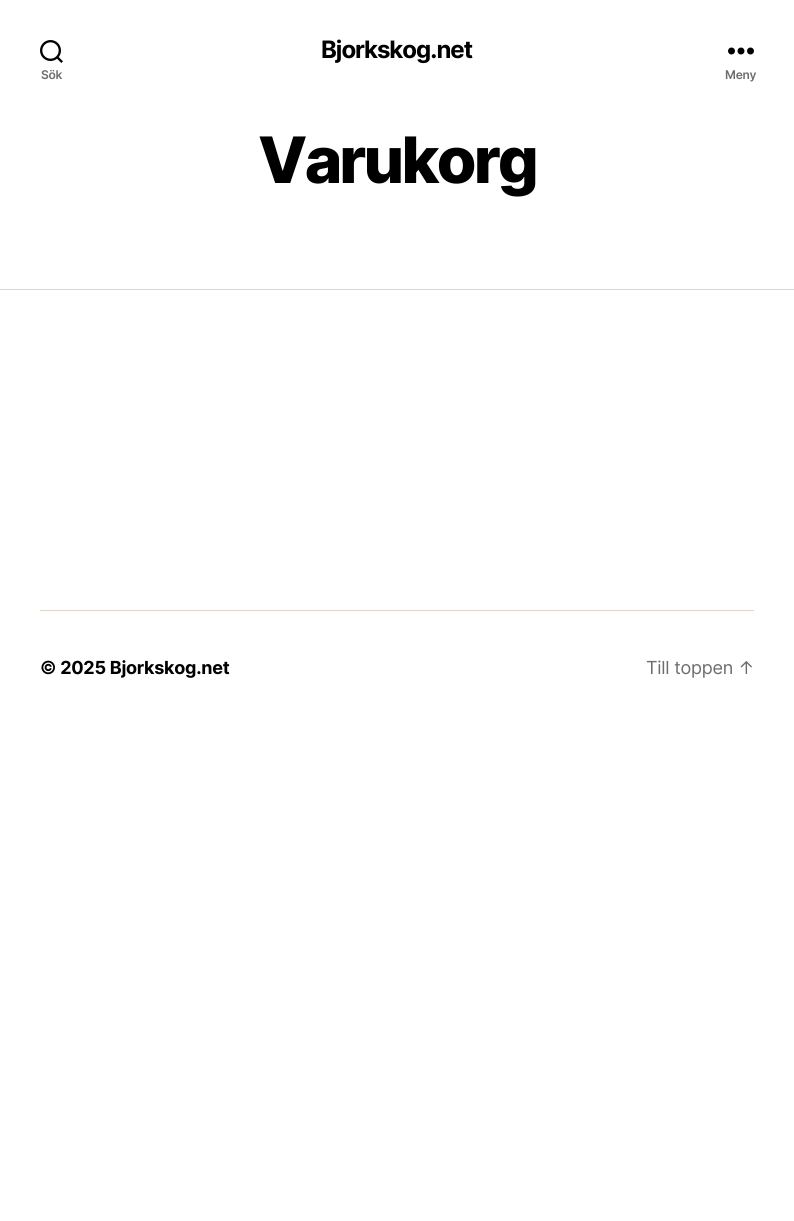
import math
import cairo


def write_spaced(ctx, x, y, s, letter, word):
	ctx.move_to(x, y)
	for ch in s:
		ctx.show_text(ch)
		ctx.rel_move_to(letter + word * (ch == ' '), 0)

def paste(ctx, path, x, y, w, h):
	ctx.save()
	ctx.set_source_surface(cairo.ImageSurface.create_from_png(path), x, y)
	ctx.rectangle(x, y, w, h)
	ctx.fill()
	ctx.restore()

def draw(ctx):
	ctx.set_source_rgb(1, 1, 1)
	ctx.paint()
	ctx.select_font_face('Inter', cairo.FONT_SLANT_NORMAL, cairo.FONT_WEIGHT_BOLD)
	ctx.set_font_size(24)
	ctx.set_source_rgb(0, 0, 0)
	write_spaced(ctx, 321, 58, 'Bjorkskog.net', -1, 0)
	paste(ctx, 'media/1.png', 40, 40, 23, 23)
	ctx.select_font_face('Inter SemiBold')
	ctx.set_font_size(12)
	ctx.set_source_rgb(0.427, 0.427, 0.427)
	write_spaced(ctx, 41, 79, 'Sök', -0.25, 0)
	paste(ctx, 'media/2.png', 728, 47, 26, 8)
	write_spaced(ctx, 725, 79, 'Meny', -0.25, 0)
	ctx.select_font_face('Inter ExtraBold')
	ctx.set_font_size(64)
	ctx.set_source_rgb(0, 0, 0)
	write_spaced(ctx, 258, 183, 'Varukorg', -2.75, 0)
	ctx.set_source_rgb(0.863, 0.843, 0.792)
	ctx.rectangle(0, 289, 794, 1)
	ctx.fill()
	ctx.rectangle(40, 610, 714, 1)
	ctx.fill()
	ctx.select_font_face('Inter', cairo.FONT_SLANT_NORMAL, cairo.FONT_WEIGHT_BOLD)
	ctx.set_font_size(18)
	ctx.set_source_rgb(0, 0, 0)
	write_spaced(ctx, 40, 674, '© 2025 Bjorkskog.net', -0.25, 0)
	ctx.select_font_face('Inter')
	ctx.set_source_rgb(0.427, 0.427, 0.427)
	write_spaced(ctx, 646, 674, 'Till toppen ↑', -0.25, 0)


surface = cairo.ImageSurface(cairo.FORMAT_RGB24, 794, 1221)
ctx = cairo.Context(surface)
options = cairo.FontOptions()
options.set_hint_metrics(cairo.HINT_METRICS_OFF)
options.set_hint_style(cairo.HINT_STYLE_NONE)
ctx.set_font_options(options)
ctx.set_miter_limit(4)
draw(ctx)
surface.write_to_png('image.png')
